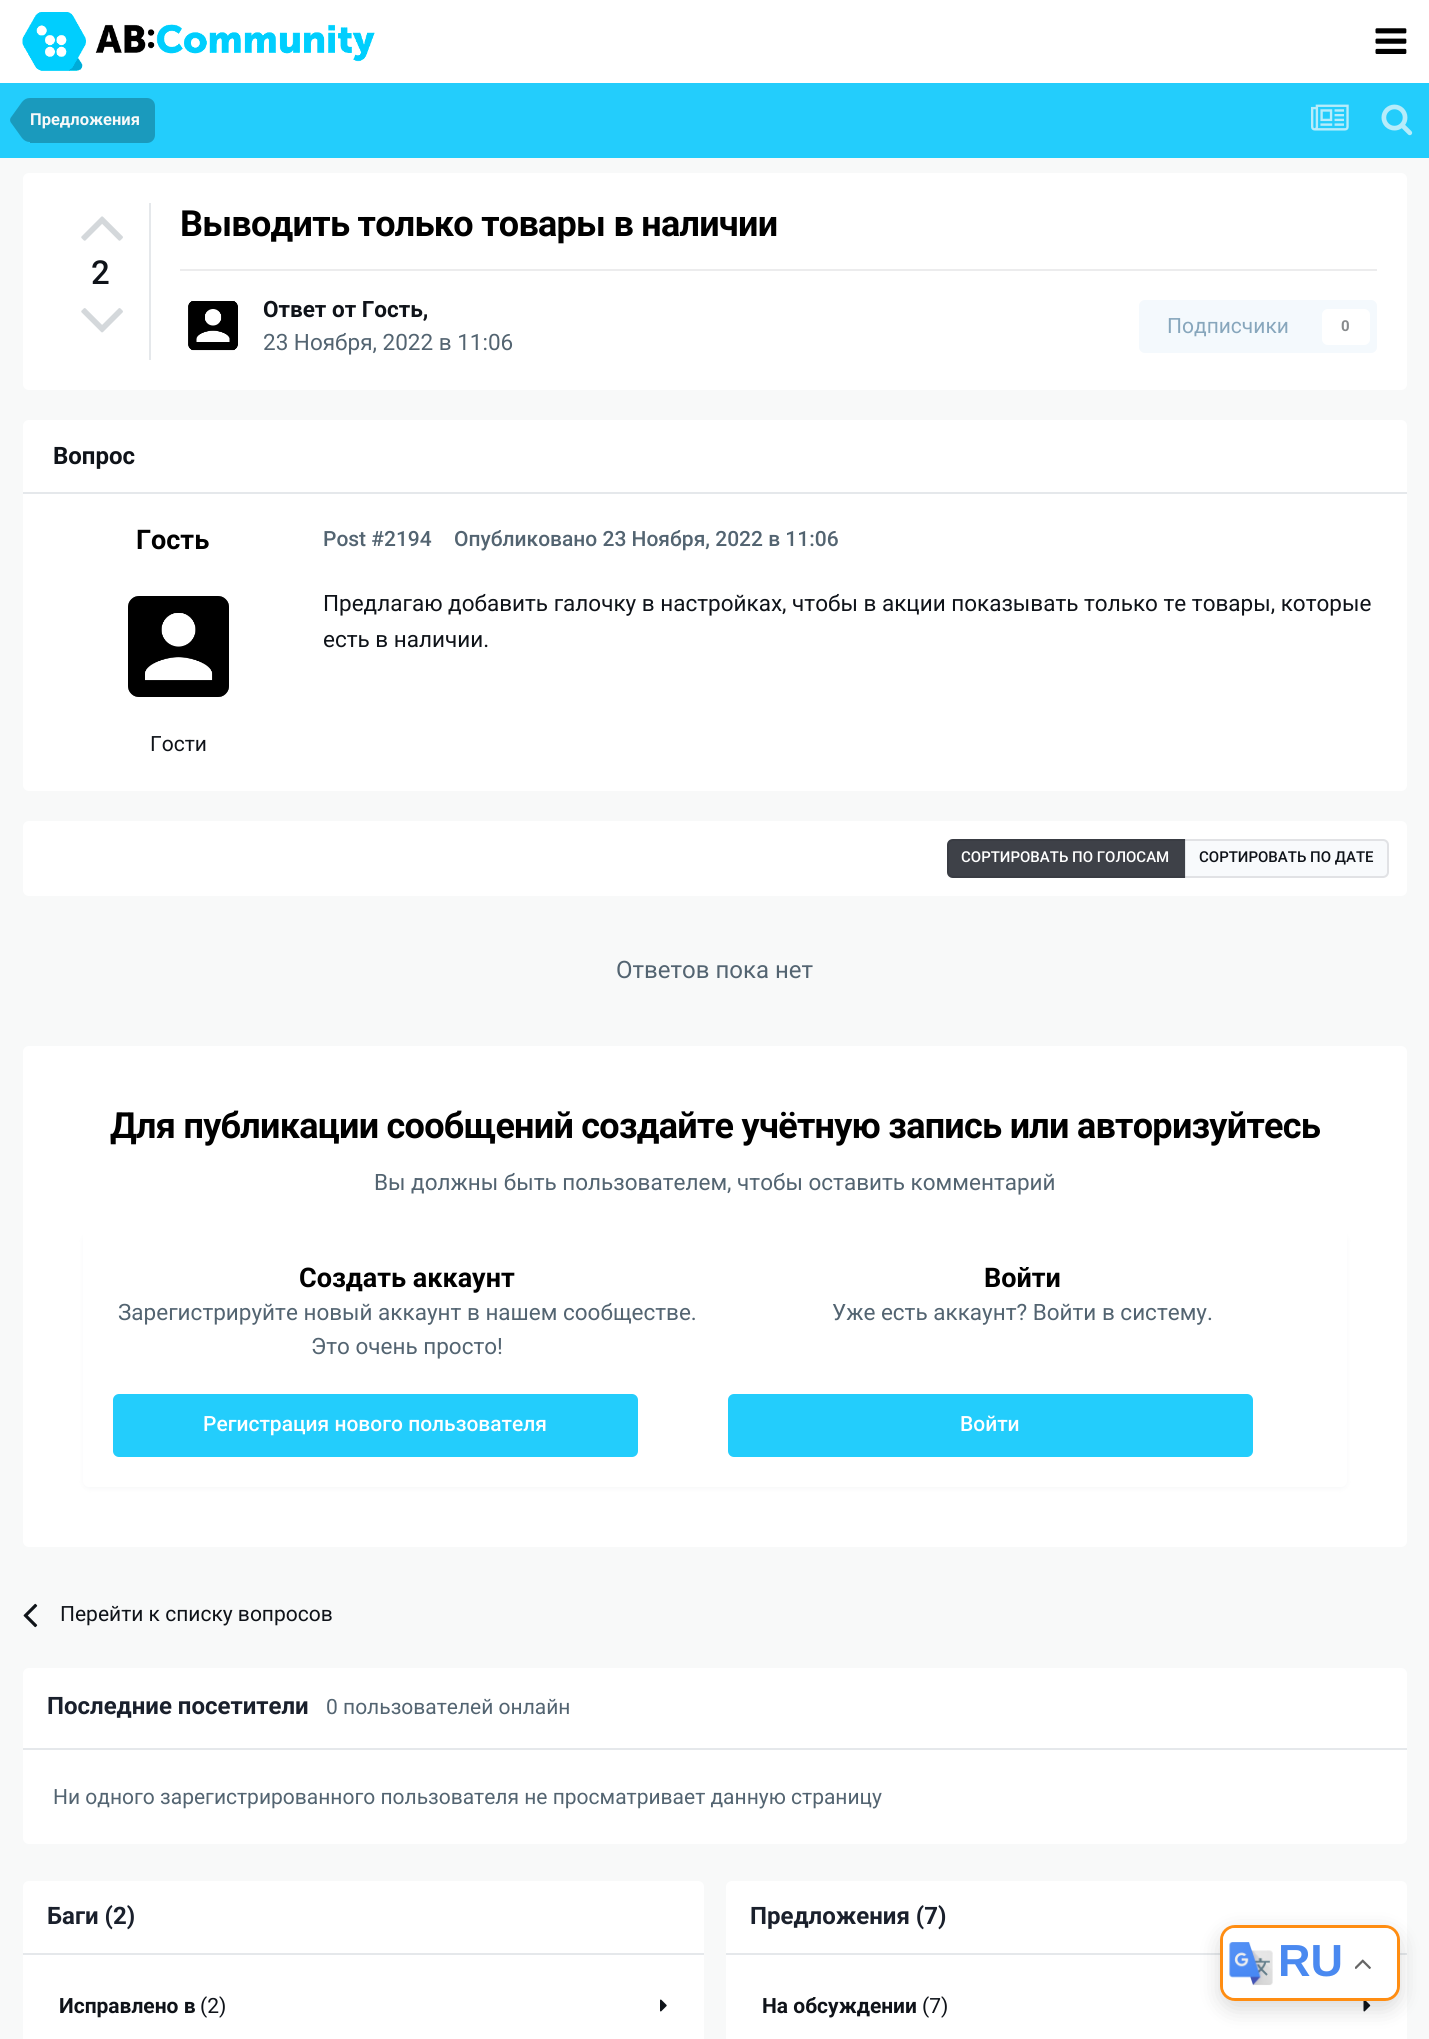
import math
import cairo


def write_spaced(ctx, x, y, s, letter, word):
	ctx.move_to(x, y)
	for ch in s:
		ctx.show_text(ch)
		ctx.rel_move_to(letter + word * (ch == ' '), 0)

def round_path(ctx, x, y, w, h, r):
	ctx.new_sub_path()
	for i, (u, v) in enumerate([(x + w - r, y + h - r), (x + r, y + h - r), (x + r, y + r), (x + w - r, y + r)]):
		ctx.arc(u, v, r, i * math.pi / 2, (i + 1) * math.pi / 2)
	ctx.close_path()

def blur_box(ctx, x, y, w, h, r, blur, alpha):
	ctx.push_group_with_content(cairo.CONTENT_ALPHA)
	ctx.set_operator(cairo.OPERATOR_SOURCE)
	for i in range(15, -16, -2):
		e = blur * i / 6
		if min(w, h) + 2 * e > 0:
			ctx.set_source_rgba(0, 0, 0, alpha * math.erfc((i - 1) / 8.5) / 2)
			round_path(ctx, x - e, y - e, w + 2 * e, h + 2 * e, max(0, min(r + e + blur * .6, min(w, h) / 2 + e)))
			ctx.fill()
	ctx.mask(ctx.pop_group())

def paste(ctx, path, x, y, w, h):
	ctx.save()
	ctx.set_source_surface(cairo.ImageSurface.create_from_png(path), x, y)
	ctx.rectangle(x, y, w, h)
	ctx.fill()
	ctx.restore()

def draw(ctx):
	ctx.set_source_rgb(0.969, 0.976, 0.976)
	ctx.paint()
	ctx.set_source_rgb(1, 1, 1)
	ctx.rectangle(0, 0, 1429, 83)
	ctx.fill()
	paste(ctx, 'media/1.png', 22, 12, 353, 59)
	paste(ctx, 'media/2.png', 1375, 28, 32, 26)
	ctx.set_source_rgb(0.137, 0.804, 0.988)
	ctx.rectangle(0, 83, 1429, 75)
	ctx.fill()
	ctx.set_source_rgb(0.102, 0.604, 0.741)
	ctx.new_path()
	ctx.move_to(30, 98)
	ctx.line_to(147, 98)
	ctx.curve_to(151.5, 98, 155, 101.5, 155, 106)
	ctx.line_to(155, 135)
	ctx.curve_to(155, 139.5, 151.5, 143, 147, 143)
	ctx.line_to(30, 143)
	ctx.close_path()
	ctx.fill()
	ctx.new_path()
	ctx.move_to(30, 120)
	ctx.line_to(30, 142)
	ctx.curve_to(27, 142, 24.5, 141, 22, 138)
	ctx.line_to(10.5, 122)
	ctx.line_to(10, 120)
	ctx.close_path()
	ctx.move_to(30, 120)
	ctx.line_to(10, 120)
	ctx.line_to(10.5, 118)
	ctx.line_to(22, 102)
	ctx.curve_to(24.5, 99, 27, 98, 30, 98)
	ctx.close_path()
	ctx.fill()
	ctx.select_font_face('Roboto', cairo.FONT_SLANT_NORMAL, cairo.FONT_WEIGHT_BOLD)
	ctx.set_font_size(16.5)
	ctx.set_source_rgb(0.969, 0.976, 0.976)
	ctx.move_to(30, 125)
	ctx.show_text('Предложения')
	paste(ctx, 'media/3.png', 1311, 104, 38, 27)
	paste(ctx, 'media/4.png', 1381, 104, 32, 32)
	ctx.set_source_rgb(1, 1, 1)
	round_path(ctx, 23, 173, 1384, 217, 6)
	ctx.fill()
	ctx.set_source_rgb(0.898, 0.91, 0.918)
	ctx.rectangle(149, 203, 2, 157)
	ctx.fill()
	paste(ctx, 'media/5.png', 81, 216, 42, 25)
	ctx.select_font_face('Roboto Medium')
	ctx.set_font_size(33)
	ctx.set_source_rgb(0.059, 0.078, 0.098)
	ctx.move_to(91, 284)
	ctx.show_text('2')
	paste(ctx, 'media/6.png', 81, 308, 42, 25)
	ctx.select_font_face('Roboto', cairo.FONT_SLANT_NORMAL, cairo.FONT_WEIGHT_BOLD)
	ctx.set_font_size(36)
	ctx.set_source_rgb(0, 0, 0)
	write_spaced(ctx, 180, 236, 'Выводить только товары в наличии', -0.72, 0)
	ctx.set_source_rgb(0.925, 0.925, 0.929)
	ctx.rectangle(180, 269, 1197, 2)
	ctx.fill()
	paste(ctx, 'media/7.png', 188, 301, 50, 50)
	ctx.set_font_size(22.5)
	ctx.set_source_rgb(0.059, 0.078, 0.098)
	ctx.move_to(263, 317)
	ctx.show_text('Ответ от Гость,')
	ctx.select_font_face('Roboto')
	ctx.set_source_rgb(0.325, 0.392, 0.443)
	ctx.move_to(263, 350)
	ctx.show_text('23 Ноября, 2022 в 11:06')
	ctx.set_source_rgb(0.957, 0.976, 0.992)
	round_path(ctx, 1139, 300, 238, 53, 6)
	ctx.fill()
	ctx.set_font_size(21)
	ctx.set_source_rgb(0.529, 0.651, 0.737)
	ctx.move_to(1167, 333)
	ctx.show_text('Подписчики')
	ctx.set_source_rgb(1, 1, 1)
	round_path(ctx, 1322, 309, 48, 36, 6)
	ctx.fill()
	ctx.select_font_face('Roboto', cairo.FONT_SLANT_NORMAL, cairo.FONT_WEIGHT_BOLD)
	ctx.set_font_size(15)
	ctx.set_source_rgb(0.529, 0.541, 0.549)
	ctx.move_to(1341, 331)
	ctx.show_text('0')
	ctx.set_source_rgb(1, 1, 1)
	round_path(ctx, 23, 420, 1384, 371, 6)
	ctx.fill()
	ctx.set_source_rgb(0.898, 0.91, 0.918)
	ctx.rectangle(23, 492, 1384, 2)
	ctx.fill()
	ctx.set_font_size(24)
	ctx.set_source_rgb(0.059, 0.078, 0.098)
	ctx.move_to(53, 464)
	ctx.show_text('Вопрос')
	ctx.set_font_size(27)
	ctx.set_source_rgb(0, 0, 0)
	ctx.move_to(136, 549)
	ctx.show_text('Гость')
	paste(ctx, 'media/8.png', 128, 596, 101, 101)
	ctx.select_font_face('Roboto')
	ctx.set_font_size(21)
	ctx.set_source_rgb(0.059, 0.078, 0.098)
	ctx.move_to(150, 751)
	ctx.show_text('Гости')
	ctx.select_font_face('Roboto Medium')
	ctx.set_source_rgb(0.325, 0.392, 0.443)
	ctx.move_to(323, 546)
	ctx.show_text('Post #2194')
	ctx.move_to(454, 546)
	ctx.show_text('Опубликовано 23 Ноября, 2022 в 11:06')
	ctx.select_font_face('Roboto')
	ctx.set_font_size(22.5)
	ctx.set_source_rgb(0.059, 0.078, 0.098)
	ctx.move_to(323, 611)
	ctx.show_text('Предлагаю добавить галочку в настройках, чтобы в акции показывать только те товары, которые')
	ctx.move_to(323, 647)
	ctx.show_text('есть в наличии.')
	ctx.set_source_rgb(1, 1, 1)
	round_path(ctx, 23, 821, 1384, 75, 6)
	ctx.fill()
	ctx.set_source_rgb(0.243, 0.255, 0.282)
	ctx.new_path()
	ctx.move_to(953, 839)
	ctx.line_to(1185, 839)
	ctx.line_to(1185, 878)
	ctx.line_to(953, 878)
	ctx.curve_to(949.5, 878, 947, 875.5, 947, 872)
	ctx.line_to(947, 845)
	ctx.curve_to(947, 841.5, 949.5, 839, 953, 839)
	ctx.close_path()
	ctx.fill()
	ctx.set_source_rgb(0.969, 0.98, 0.988)
	ctx.new_path()
	ctx.move_to(1185, 839)
	ctx.line_to(1383, 839)
	ctx.curve_to(1386.5, 839, 1389, 841.5, 1389, 845)
	ctx.line_to(1389, 872)
	ctx.curve_to(1389, 875.5, 1386.5, 878, 1383, 878)
	ctx.line_to(1185, 878)
	ctx.close_path()
	ctx.fill()
	ctx.set_source_rgb(0.898, 0.91, 0.918)
	ctx.rectangle(1185, 839, 1, 39)
	ctx.fill()
	round_path(ctx, 948, 840, 440, 37, 5)
	ctx.set_source_rgba(0.059, 0.078, 0.098, 0.1)
	ctx.stroke()
	ctx.select_font_face('Roboto Medium')
	ctx.set_font_size(15)
	ctx.set_source_rgb(1, 1, 1)
	ctx.move_to(961, 862)
	ctx.show_text('СОРТИРОВАТЬ ПО ГОЛОСАМ')
	ctx.set_source_rgb(0.059, 0.078, 0.098)
	ctx.move_to(1199, 862)
	ctx.show_text('СОРТИРОВАТЬ ПО ДАТЕ')
	ctx.select_font_face('Roboto')
	ctx.set_font_size(24)
	ctx.set_source_rgb(0.325, 0.392, 0.443)
	ctx.move_to(616, 978)
	ctx.show_text('Ответов пока нет')
	ctx.set_source_rgb(1, 1, 1)
	round_path(ctx, 23, 1046, 1384, 501, 6)
	ctx.fill()
	ctx.select_font_face('Roboto', cairo.FONT_SLANT_NORMAL, cairo.FONT_WEIGHT_BOLD)
	ctx.set_font_size(36)
	ctx.set_source_rgb(0, 0, 0)
	write_spaced(ctx, 110, 1138, 'Для публикации сообщений создайте учётную запись или авторизуйтесь', -0.72, 0)
	ctx.select_font_face('Roboto')
	ctx.set_font_size(22.5)
	ctx.set_source_rgb(0.325, 0.392, 0.443)
	ctx.move_to(374, 1190)
	ctx.show_text('Вы должны быть пользователем, чтобы оставить комментарий')
	ctx.set_source_rgb(0.584, 0.635, 0.698)
	blur_box(ctx, 84, 1235, 1262, 253, 5, 3, 0.1)
	ctx.set_source_rgb(1, 1, 1)
	round_path(ctx, 83, 1230, 1264, 257, 6)
	ctx.fill()
	ctx.select_font_face('Roboto', cairo.FONT_SLANT_NORMAL, cairo.FONT_WEIGHT_BOLD)
	ctx.set_font_size(27)
	ctx.set_source_rgb(0, 0, 0)
	ctx.move_to(299, 1287)
	ctx.show_text('Создать аккаунт')
	ctx.select_font_face('Roboto')
	ctx.set_font_size(22.5)
	ctx.set_source_rgb(0.325, 0.392, 0.443)
	ctx.move_to(118, 1320)
	ctx.show_text('Зарегистрируйте новый аккаунт в нашем сообществе.')
	ctx.move_to(311, 1354)
	ctx.show_text('Это очень просто!')
	ctx.set_source_rgb(0.137, 0.804, 0.988)
	round_path(ctx, 113, 1394, 525, 63, 6)
	ctx.fill()
	ctx.select_font_face('Roboto Medium')
	ctx.set_font_size(21)
	ctx.set_source_rgb(1, 1, 1)
	ctx.move_to(203, 1431)
	ctx.show_text('Регистрация нового пользователя')
	ctx.select_font_face('Roboto', cairo.FONT_SLANT_NORMAL, cairo.FONT_WEIGHT_BOLD)
	ctx.set_font_size(27)
	ctx.set_source_rgb(0, 0, 0)
	ctx.move_to(984, 1287)
	ctx.show_text('Войти')
	ctx.select_font_face('Roboto')
	ctx.set_font_size(22.5)
	ctx.set_source_rgb(0.325, 0.392, 0.443)
	ctx.move_to(832, 1320)
	ctx.show_text('Уже есть аккаунт? Войти в систему.')
	ctx.set_source_rgb(0.137, 0.804, 0.988)
	round_path(ctx, 728, 1394, 525, 63, 6)
	ctx.fill()
	ctx.select_font_face('Roboto Medium')
	ctx.set_font_size(21)
	ctx.set_source_rgb(1, 1, 1)
	ctx.move_to(960, 1431)
	ctx.show_text('Войти')
	paste(ctx, 'media/9.png', 23, 1603, 15, 25)
	ctx.select_font_face('Roboto')
	ctx.set_source_rgb(0.059, 0.078, 0.098)
	ctx.move_to(60, 1621)
	ctx.show_text('Перейти к списку вопросов')
	ctx.set_source_rgb(1, 1, 1)
	round_path(ctx, 23, 1668, 1384, 176, 6)
	ctx.fill()
	ctx.set_source_rgb(0.898, 0.91, 0.918)
	ctx.rectangle(23, 1748, 1384, 2)
	ctx.fill()
	ctx.select_font_face('Roboto', cairo.FONT_SLANT_NORMAL, cairo.FONT_WEIGHT_BOLD)
	ctx.set_font_size(24)
	ctx.set_source_rgb(0.102, 0.125, 0.173)
	ctx.move_to(47, 1714)
	ctx.show_text('Последние посетители')
	ctx.select_font_face('Roboto')
	ctx.set_font_size(21)
	ctx.set_source_rgb(0.325, 0.392, 0.443)
	ctx.move_to(326, 1714)
	ctx.show_text('0 пользователей онлайн')
	ctx.move_to(53, 1804)
	ctx.show_text('Ни одного зарегистрированного пользователя не просматривает данную страницу')
	ctx.set_source_rgb(1, 1, 1)
	round_path(ctx, 23, 1881, 681, 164, 6)
	ctx.fill()
	ctx.set_source_rgb(0.898, 0.91, 0.918)
	ctx.rectangle(23, 1953, 681, 2)
	ctx.fill()
	ctx.select_font_face('Roboto', cairo.FONT_SLANT_NORMAL, cairo.FONT_WEIGHT_BOLD)
	ctx.set_font_size(24)
	ctx.set_source_rgb(0.102, 0.125, 0.173)
	ctx.move_to(47, 1924)
	ctx.show_text('Баги (2)')
	ctx.set_font_size(21)
	ctx.set_source_rgb(0.059, 0.078, 0.098)
	ctx.move_to(59, 2013)
	ctx.show_text('Исправлено в')
	ctx.select_font_face('Roboto')
	ctx.move_to(200, 2013)
	ctx.show_text('(2)')
	paste(ctx, 'media/10.png', 660, 1999, 7, 13)
	ctx.set_source_rgb(1, 1, 1)
	round_path(ctx, 726, 1881, 681, 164, 6)
	ctx.fill()
	ctx.set_source_rgb(0.898, 0.91, 0.918)
	ctx.rectangle(726, 1953, 681, 2)
	ctx.fill()
	ctx.select_font_face('Roboto', cairo.FONT_SLANT_NORMAL, cairo.FONT_WEIGHT_BOLD)
	ctx.set_font_size(24)
	ctx.set_source_rgb(0.102, 0.125, 0.173)
	ctx.move_to(750, 1924)
	ctx.show_text('Предложения (7)')
	ctx.set_font_size(21)
	ctx.set_source_rgb(0.059, 0.078, 0.098)
	ctx.move_to(762, 2013)
	ctx.show_text('На обсуждении')
	ctx.select_font_face('Roboto')
	ctx.move_to(922, 2013)
	ctx.show_text('(7)')
	paste(ctx, 'media/11.png', 1363, 2001, 8, 11)
	ctx.set_source_rgb(0, 0, 0)
	blur_box(ctx, 1220, 1932, 180, 77, 15, 11, 0.15)
	round_path(ctx, 1221.5, 1926.5, 177, 73, 13.5)
	ctx.set_source_rgb(1, 0.553, 0.071)
	ctx.set_line_width(3)
	ctx.stroke()
	ctx.set_source_rgb(1, 1, 1)
	round_path(ctx, 1223, 1928, 174, 70, 12)
	ctx.fill()
	paste(ctx, 'media/12.png', 1229, 1942, 44, 44)
	ctx.select_font_face('Liberation Sans', cairo.FONT_SLANT_NORMAL, cairo.FONT_WEIGHT_BOLD)
	ctx.set_font_size(45)
	ctx.set_source_rgb(0.29, 0.537, 0.941)
	ctx.move_to(1278, 1976)
	ctx.show_text('RU')
	paste(ctx, 'media/13.png', 1355, 1959, 16, 10)


surface = cairo.ImageSurface(cairo.FORMAT_RGB24, 1429, 2039)
ctx = cairo.Context(surface)
options = cairo.FontOptions()
options.set_hint_metrics(cairo.HINT_METRICS_OFF)
options.set_hint_style(cairo.HINT_STYLE_NONE)
ctx.set_font_options(options)
ctx.set_miter_limit(4)
draw(ctx)
surface.write_to_png('image.png')
